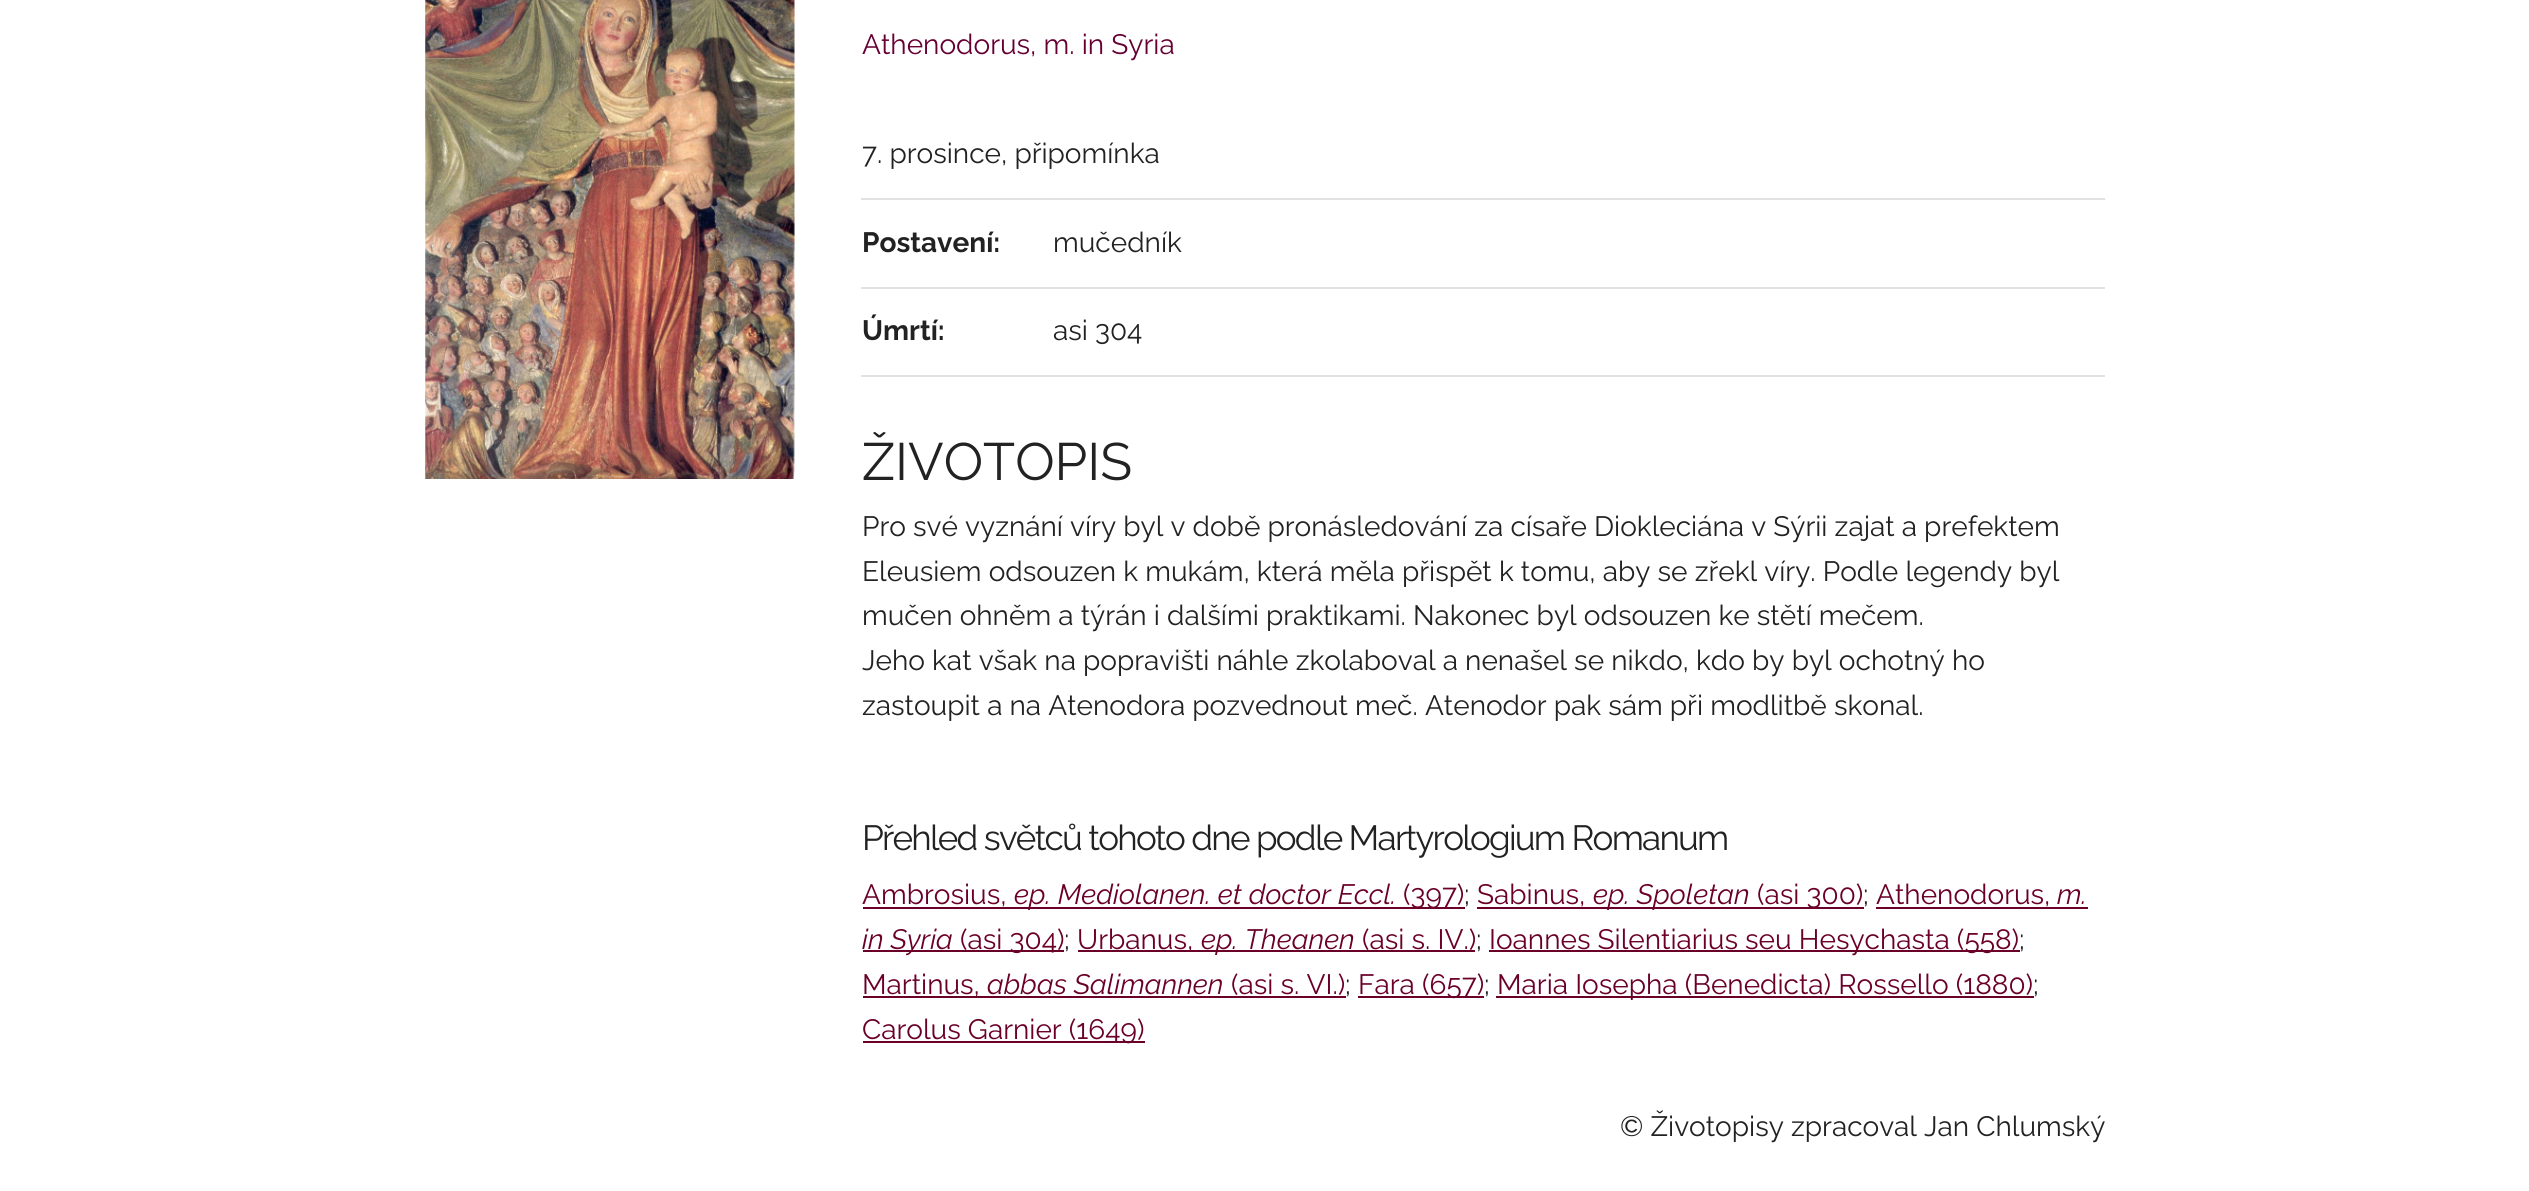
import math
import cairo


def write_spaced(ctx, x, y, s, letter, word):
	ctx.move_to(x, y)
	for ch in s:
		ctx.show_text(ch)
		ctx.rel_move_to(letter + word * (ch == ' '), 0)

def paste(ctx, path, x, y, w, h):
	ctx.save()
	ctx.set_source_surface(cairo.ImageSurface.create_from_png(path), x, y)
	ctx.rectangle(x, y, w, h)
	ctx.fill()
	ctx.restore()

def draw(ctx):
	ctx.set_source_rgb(1, 1, 1)
	ctx.paint()
	paste(ctx, 'media/1.png', 425, 0, 370, 479)
	ctx.select_font_face('Raleway')
	ctx.set_font_size(28)
	ctx.set_source_rgb(0.4, 0, 0.2)
	ctx.move_to(862, 54)
	ctx.show_text('Athenodorus, m. in Syria')
	ctx.set_source_rgb(0.882, 0.882, 0.882)
	ctx.rectangle(861, 198, 1244, 2)
	ctx.fill()
	ctx.set_source_rgb(0.133, 0.133, 0.133)
	ctx.move_to(862, 163)
	ctx.show_text('7. prosince, připomínka')
	ctx.select_font_face('Raleway', cairo.FONT_SLANT_NORMAL, cairo.FONT_WEIGHT_BOLD)
	ctx.move_to(862, 252)
	ctx.show_text('Postavení:')
	ctx.set_source_rgb(0.882, 0.882, 0.882)
	ctx.rectangle(861, 287, 1244, 2)
	ctx.fill()
	ctx.select_font_face('Raleway')
	ctx.set_source_rgb(0.133, 0.133, 0.133)
	ctx.move_to(1053, 252)
	ctx.show_text('mučedník')
	ctx.select_font_face('Raleway', cairo.FONT_SLANT_NORMAL, cairo.FONT_WEIGHT_BOLD)
	ctx.move_to(862, 340)
	ctx.show_text('Úmrtí:')
	ctx.set_source_rgb(0.882, 0.882, 0.882)
	ctx.rectangle(861, 375, 1244, 2)
	ctx.fill()
	ctx.select_font_face('Raleway')
	ctx.set_source_rgb(0.133, 0.133, 0.133)
	ctx.move_to(1053, 340)
	ctx.show_text('asi 304')
	ctx.set_font_size(52.5)
	ctx.move_to(862, 480)
	ctx.show_text('ŽIVOTOPIS')
	ctx.set_font_size(28)
	for x, y, s in [
		(862, 536, 'Pro své vyznání víry byl v době pronásledování za císaře Diokleciána v Sýrii zajat a prefektem'),
		(862, 581, 'Eleusiem odsouzen k mukám, která měla přispět k tomu, aby se zřekl víry. Podle legendy byl'),
		(862, 625, 'mučen ohněm a týrán i dalšími praktikami. Nakonec byl odsouzen ke stětí mečem.'),
		(862, 670, 'Jeho kat však na popravišti náhle zkolaboval a nenašel se nikdo, kdo by byl ochotný ho'),
		(862, 715, 'zastoupit a na Atenodora pozvednout meč. Atenodor pak sám při modlitbě skonal.'),
	]:
		ctx.move_to(x, y)
		ctx.show_text(s)
	ctx.set_font_size(35)
	write_spaced(ctx, 862, 850, 'Přehled světců tohoto dne podle Martyrologium Romanum', -1.75, 0)
	ctx.set_font_size(28)
	ctx.set_source_rgb(0.416, 0, 0.157)
	ctx.move_to(862, 904)
	ctx.show_text('Ambrosius,')
	ctx.rectangle(863, 907, 602, 2)
	ctx.fill()
	ctx.select_font_face('Raleway', cairo.FONT_SLANT_ITALIC)
	ctx.move_to(1014, 904)
	ctx.show_text('ep. Mediolanen. et doctor Eccl.')
	ctx.select_font_face('Raleway')
	ctx.move_to(1403, 904)
	ctx.show_text('(397)')
	ctx.set_source_rgb(0.133, 0.133, 0.133)
	ctx.move_to(1464, 904)
	ctx.show_text(';')
	ctx.set_source_rgb(0.416, 0, 0.157)
	ctx.move_to(1477, 904)
	ctx.show_text('Sabinus,')
	ctx.rectangle(1477, 907, 387, 2)
	ctx.fill()
	ctx.select_font_face('Raleway', cairo.FONT_SLANT_ITALIC)
	ctx.move_to(1593, 904)
	ctx.show_text('ep. Spoletan')
	ctx.select_font_face('Raleway')
	ctx.move_to(1757, 904)
	ctx.show_text('(asi 300)')
	ctx.set_source_rgb(0.133, 0.133, 0.133)
	ctx.move_to(1863, 904)
	ctx.show_text(';')
	ctx.set_source_rgb(0.416, 0, 0.157)
	ctx.move_to(1876, 904)
	ctx.show_text('Athenodorus,')
	ctx.select_font_face('Raleway', cairo.FONT_SLANT_ITALIC)
	ctx.move_to(2057, 904)
	ctx.show_text('m.')
	ctx.rectangle(1876, 907, 212, 2)
	ctx.fill()
	ctx.rectangle(863, 950, 201, 2)
	ctx.fill()
	ctx.move_to(862, 949)
	ctx.show_text('in Syria')
	ctx.select_font_face('Raleway')
	ctx.move_to(960, 949)
	ctx.show_text('(asi 304)')
	ctx.set_source_rgb(0.133, 0.133, 0.133)
	ctx.move_to(1064, 949)
	ctx.show_text(';')
	ctx.set_source_rgb(0.416, 0, 0.157)
	ctx.rectangle(1078, 950, 397, 2)
	ctx.fill()
	ctx.move_to(1077, 949)
	ctx.show_text('Urbanus,')
	ctx.select_font_face('Raleway', cairo.FONT_SLANT_ITALIC)
	ctx.move_to(1201, 949)
	ctx.show_text('ep. Theanen')
	ctx.select_font_face('Raleway')
	ctx.move_to(1362, 949)
	ctx.show_text('(asi s. IV.)')
	ctx.set_source_rgb(0.133, 0.133, 0.133)
	ctx.move_to(1476, 949)
	ctx.show_text(';')
	ctx.set_source_rgb(0.416, 0, 0.157)
	ctx.rectangle(1489, 950, 531, 2)
	ctx.fill()
	ctx.move_to(1489, 949)
	ctx.show_text('Ioannes Silentiarius seu Hesychasta (558)')
	ctx.set_source_rgb(0.133, 0.133, 0.133)
	ctx.move_to(2019, 949)
	ctx.show_text(';')
	ctx.set_source_rgb(0.416, 0, 0.157)
	ctx.rectangle(863, 996, 483, 2)
	ctx.fill()
	ctx.move_to(862, 994)
	ctx.show_text('Martinus,')
	ctx.select_font_face('Raleway', cairo.FONT_SLANT_ITALIC)
	ctx.move_to(987, 994)
	ctx.show_text('abbas Salimannen')
	ctx.select_font_face('Raleway')
	ctx.move_to(1231, 994)
	ctx.show_text('(asi s. VI.)')
	ctx.set_source_rgb(0.133, 0.133, 0.133)
	ctx.move_to(1345, 994)
	ctx.show_text(';')
	ctx.set_source_rgb(0.416, 0, 0.157)
	ctx.rectangle(1358, 996, 126, 2)
	ctx.fill()
	ctx.move_to(1358, 994)
	ctx.show_text('Fara (657)')
	ctx.set_source_rgb(0.133, 0.133, 0.133)
	ctx.move_to(1484, 994)
	ctx.show_text(';')
	ctx.set_source_rgb(0.416, 0, 0.157)
	ctx.rectangle(1496, 996, 538, 2)
	ctx.fill()
	ctx.move_to(1497, 994)
	ctx.show_text('Maria Iosepha (Benedicta) Rossello (1880)')
	ctx.set_source_rgb(0.133, 0.133, 0.133)
	ctx.move_to(2033, 994)
	ctx.show_text(';')
	ctx.set_source_rgb(0.416, 0, 0.157)
	ctx.rectangle(863, 1041, 282, 2)
	ctx.fill()
	ctx.move_to(862, 1039)
	ctx.show_text('Carolus Garnier (1649)')
	ctx.set_source_rgb(0.133, 0.133, 0.133)
	ctx.move_to(1620, 1136)
	ctx.show_text('© Životopisy zpracoval Jan Chlumský')


surface = cairo.ImageSurface(cairo.FORMAT_RGB24, 2529, 1191)
ctx = cairo.Context(surface)
options = cairo.FontOptions()
options.set_hint_metrics(cairo.HINT_METRICS_OFF)
options.set_hint_style(cairo.HINT_STYLE_NONE)
ctx.set_font_options(options)
ctx.set_miter_limit(4)
draw(ctx)
surface.write_to_png('image.png')
